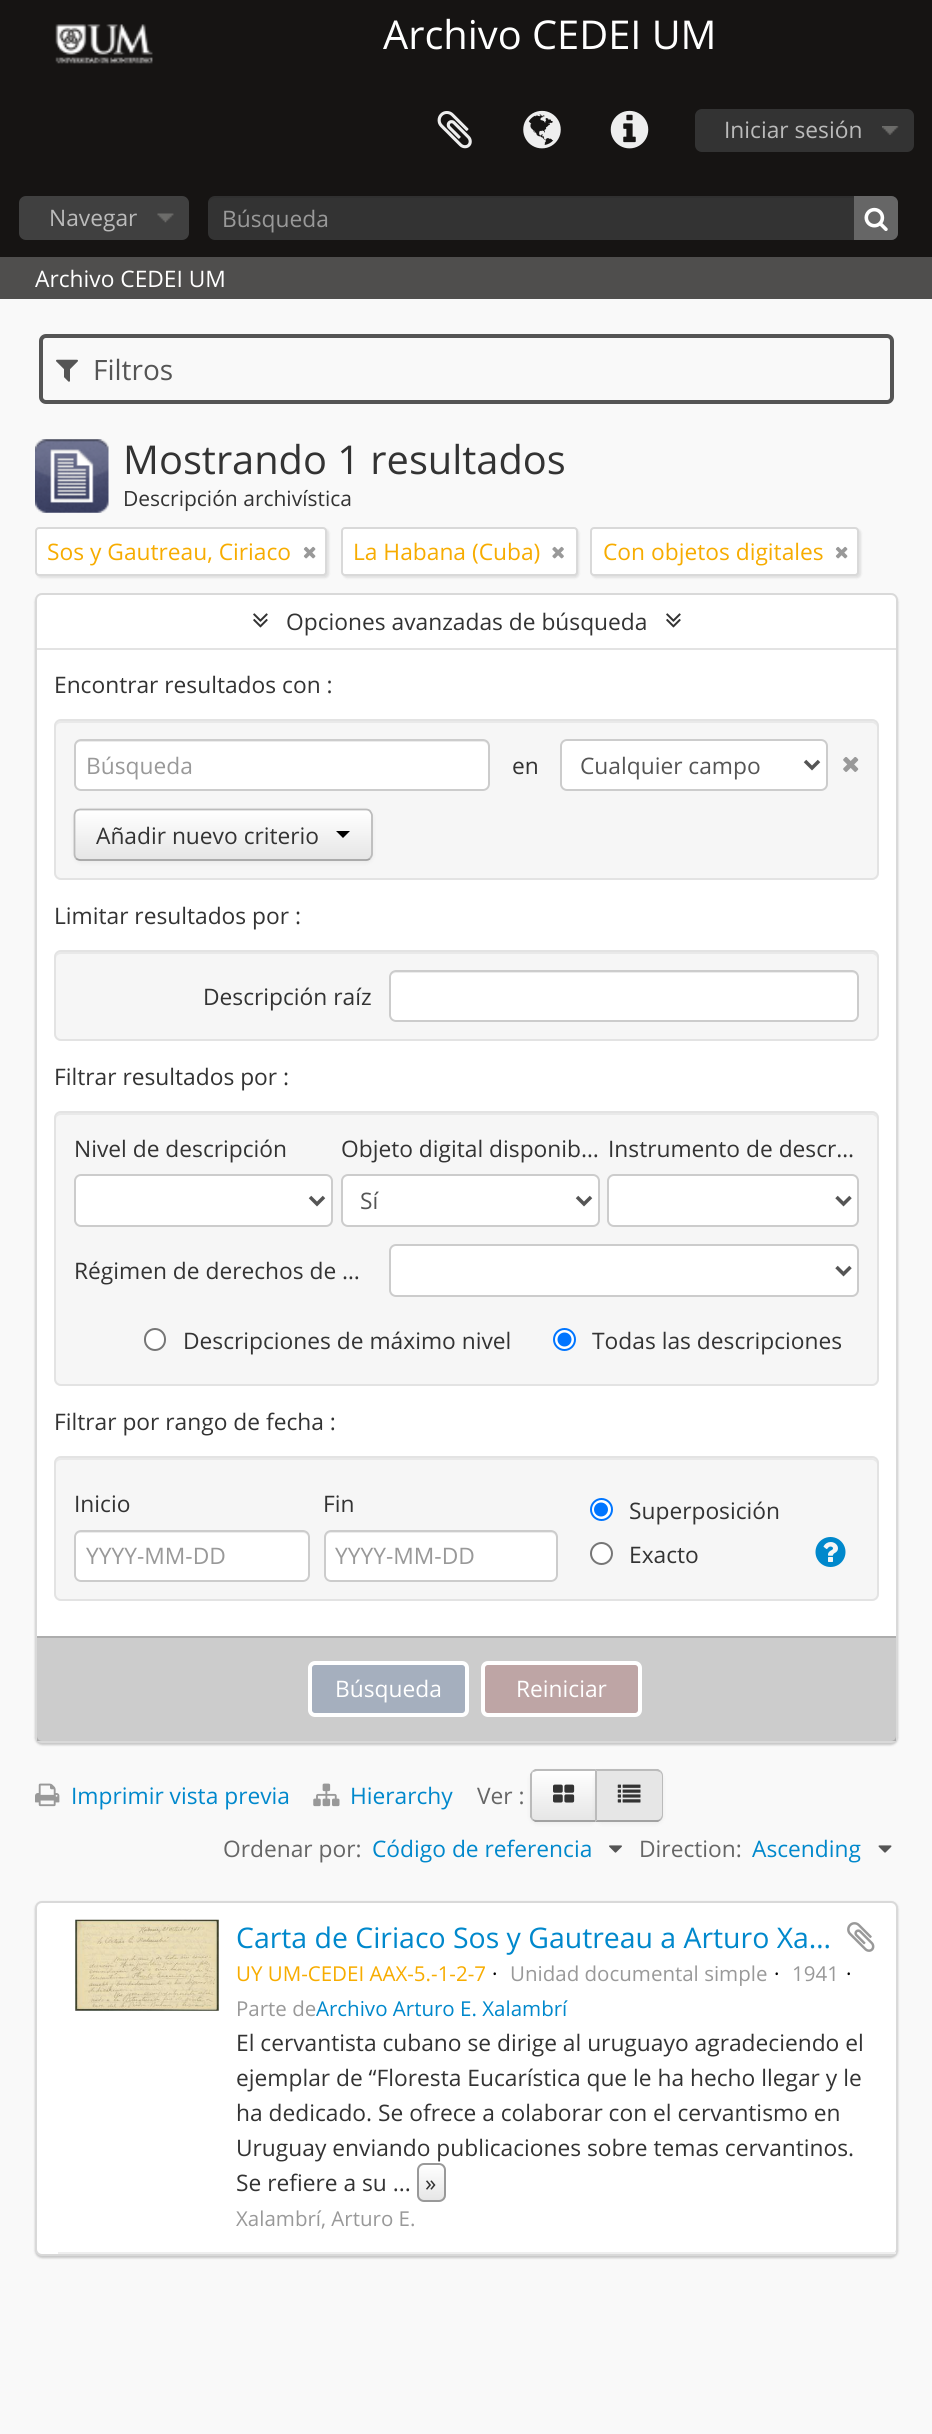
import math
import cairo


def round_path(ctx, x, y, w, h, r):
	ctx.new_sub_path()
	for i, (u, v) in enumerate([(x + w - r, y + h - r), (x + r, y + h - r), (x + r, y + r), (x + w - r, y + r)]):
		ctx.arc(u, v, r, i * math.pi / 2, (i + 1) * math.pi / 2)
	ctx.close_path()

def blur_box(ctx, x, y, w, h, r, blur, alpha):
	ctx.push_group_with_content(cairo.CONTENT_ALPHA)
	ctx.set_operator(cairo.OPERATOR_SOURCE)
	for i in range(15, -16, -2):
		e = blur * i / 6
		if min(w, h) + 2 * e > 0:
			ctx.set_source_rgba(0, 0, 0, alpha * math.erfc((i - 1) / 8.5) / 2)
			round_path(ctx, x - e, y - e, w + 2 * e, h + 2 * e, max(0, min(r + e + blur * .6, min(w, h) / 2 + e)))
			ctx.fill()
	ctx.mask(ctx.pop_group())

def paste(ctx, path, x, y, w, h):
	ctx.save()
	ctx.set_source_surface(cairo.ImageSurface.create_from_png(path), x, y)
	ctx.rectangle(x, y, w, h)
	ctx.fill()
	ctx.restore()

def draw(ctx):
	ctx.set_source_rgb(0.973, 0.973, 0.973)
	ctx.paint()
	ctx.set_source_rgb(0.086, 0.082, 0.078)
	ctx.rectangle(0, 0, 932, 257)
	ctx.fill()
	paste(ctx, 'media/1.png', 55, 24, 98, 40)
	ctx.select_font_face('Open Sans')
	ctx.set_font_size(39.75)
	ctx.set_source_rgb(1, 1, 1)
	ctx.move_to(383, 49)
	ctx.show_text('Archivo CEDEI UM')
	paste(ctx, 'media/2.png', 437, 111, 35, 38)
	paste(ctx, 'media/3.png', 523, 110, 38, 39)
	paste(ctx, 'media/4.png', 610, 110, 39, 39)
	ctx.set_source_rgb(0.2, 0.2, 0.2)
	round_path(ctx, 695, 109, 219, 43, 7)
	ctx.fill()
	paste(ctx, 'media/5.png', 882, 126, 17, 9)
	ctx.set_font_size(22.75)
	ctx.set_source_rgb(0.733, 0.733, 0.733)
	ctx.move_to(724, 138)
	ctx.show_text('Iniciar sesión')
	ctx.set_source_rgb(0.251, 0.251, 0.251)
	round_path(ctx, 19, 196, 170, 44, 7)
	ctx.fill()
	paste(ctx, 'media/6.png', 157, 213, 17, 10)
	ctx.set_source_rgb(0.733, 0.733, 0.733)
	ctx.move_to(49, 226)
	ctx.show_text('Navegar')
	ctx.set_source_rgb(0.2, 0.2, 0.2)
	round_path(ctx, 208, 196, 690, 44, 7)
	ctx.fill()
	ctx.set_source_rgba(0, 0, 0, 0.07)
	ctx.new_path()
	ctx.move_to(215, 198)
	ctx.line_to(891, 198)
	ctx.curve_to(895, 198, 898, 201, 898, 205)
	ctx.curve_to(898, 201, 896, 196, 891, 196)
	ctx.line_to(215, 196)
	ctx.curve_to(210, 196, 208, 201, 208, 205)
	ctx.curve_to(208, 201, 211, 198, 215, 198)
	ctx.close_path()
	ctx.fill()
	ctx.set_source_rgb(0.6, 0.6, 0.6)
	ctx.move_to(222, 227)
	ctx.show_text('Búsqueda')
	ctx.set_source_rgb(0.4, 0.4, 0.4)
	ctx.new_path()
	ctx.move_to(854, 196)
	ctx.line_to(891, 196)
	ctx.curve_to(895, 196, 898, 199, 898, 203)
	ctx.line_to(898, 233)
	ctx.curve_to(898, 237, 895, 240, 891, 240)
	ctx.line_to(854, 240)
	ctx.close_path()
	ctx.fill()
	paste(ctx, 'media/7.png', 864, 207, 24, 24)
	ctx.set_source_rgb(0.31, 0.306, 0.302)
	ctx.rectangle(0, 257, 932, 42)
	ctx.fill()
	ctx.set_source_rgb(1, 1, 1)
	ctx.move_to(35, 287)
	ctx.show_text('Archivo CEDEI UM')
	round_path(ctx, 41, 336, 851, 66, 5)
	ctx.set_source_rgb(0.333, 0.333, 0.333)
	ctx.set_line_width(4)
	ctx.stroke()
	paste(ctx, 'media/8.png', 56, 359, 22, 23)
	ctx.set_font_size(28)
	ctx.move_to(93, 380)
	ctx.show_text('Filtros')
	paste(ctx, 'media/9.png', 35, 439, 74, 74)
	ctx.set_font_size(39.75)
	ctx.set_source_rgb(0.2, 0.2, 0.2)
	ctx.move_to(123, 474)
	ctx.show_text('Mostrando 1 resultados')
	ctx.set_font_size(21)
	ctx.move_to(123, 506)
	ctx.show_text('Descripción archivística')
	ctx.set_source_rgb(0, 0, 0)
	blur_box(ctx, 37, 529, 292, 49, 4, 1, 0.1)
	ctx.set_source_rgb(1, 1, 1)
	round_path(ctx, 36, 528, 290, 47, 3)
	ctx.fill_preserve()
	ctx.set_source_rgb(0.851, 0.851, 0.851)
	ctx.set_line_width(2)
	ctx.stroke()
	ctx.set_font_size(22.75)
	ctx.set_source_rgb(0.965, 0.675, 0)
	ctx.move_to(47, 560)
	ctx.show_text('Sos y Gautreau, Ciriaco')
	paste(ctx, 'media/10.png', 303, 546, 13, 13)
	ctx.set_source_rgb(0, 0, 0)
	blur_box(ctx, 343, 529, 236, 49, 4, 1, 0.1)
	ctx.set_source_rgb(1, 1, 1)
	round_path(ctx, 342, 528, 235, 47, 3)
	ctx.fill_preserve()
	ctx.set_source_rgb(0.851, 0.851, 0.851)
	ctx.stroke()
	ctx.set_source_rgb(0.965, 0.675, 0)
	ctx.move_to(353, 560)
	ctx.show_text('La Habana (Cuba)')
	paste(ctx, 'media/11.png', 552, 546, 12, 13)
	ctx.set_source_rgb(0, 0, 0)
	blur_box(ctx, 592, 529, 269, 49, 4, 1, 0.1)
	ctx.set_source_rgb(1, 1, 1)
	round_path(ctx, 591, 528, 267, 47, 3)
	ctx.fill_preserve()
	ctx.set_source_rgb(0.851, 0.851, 0.851)
	ctx.stroke()
	ctx.set_source_rgb(0.965, 0.675, 0)
	ctx.move_to(603, 560)
	ctx.show_text('Con objetos digitales')
	paste(ctx, 'media/10.png', 835, 546, 13, 13)
	ctx.set_source_rgb(0, 0, 0)
	blur_box(ctx, 35, 595, 863, 1150, 7, 1, 0.2)
	ctx.set_source_rgb(1, 1, 1)
	round_path(ctx, 36, 594, 861, 1148, 6)
	ctx.fill_preserve()
	ctx.set_source_rgb(0.851, 0.851, 0.851)
	ctx.stroke()
	paste(ctx, 'media/12.png', 253, 613, 15, 15)
	ctx.set_source_rgb(0.2, 0.2, 0.2)
	ctx.move_to(286, 630)
	ctx.show_text('Opciones avanzadas de búsqueda')
	paste(ctx, 'media/12.png', 666, 613, 15, 15)
	ctx.set_source_rgb(0.89, 0.89, 0.89)
	ctx.rectangle(37, 648, 859, 2)
	ctx.fill()
	ctx.set_source_rgb(0.2, 0.2, 0.2)
	ctx.move_to(54, 693)
	ctx.show_text('Encontrar resultados con :')
	ctx.set_source_rgb(0.961, 0.961, 0.961)
	round_path(ctx, 54, 719, 825, 161, 7)
	ctx.fill()
	ctx.set_source_rgb(0.914, 0.914, 0.914)
	ctx.new_path()
	ctx.move_to(61, 723)
	ctx.line_to(872, 723)
	ctx.curve_to(874, 723, 877, 725, 877, 728)
	ctx.line_to(877, 726)
	ctx.curve_to(877, 723, 875, 721, 872, 721)
	ctx.line_to(61, 721)
	ctx.curve_to(58, 721, 56, 723, 56, 726)
	ctx.line_to(56, 728)
	ctx.curve_to(56, 725, 58, 723, 61, 723)
	ctx.close_path()
	ctx.fill()
	round_path(ctx, 55, 720, 823, 159, 6)
	ctx.set_source_rgb(0.89, 0.89, 0.89)
	ctx.stroke()
	ctx.set_source_rgb(1, 1, 1)
	round_path(ctx, 74, 739, 416, 52, 7)
	ctx.fill()
	ctx.set_source_rgb(0.925, 0.925, 0.925)
	ctx.new_path()
	ctx.move_to(80, 742)
	ctx.line_to(483, 742)
	ctx.curve_to(486, 742, 488, 744, 488, 747)
	ctx.line_to(488, 745)
	ctx.curve_to(488, 742, 486, 740, 483, 740)
	ctx.line_to(80, 740)
	ctx.curve_to(77, 740, 75, 742, 75, 745)
	ctx.line_to(75, 747)
	ctx.curve_to(75, 744, 78, 742, 80, 742)
	ctx.close_path()
	ctx.fill()
	round_path(ctx, 75, 740, 414, 50, 6)
	ctx.set_source_rgb(0.8, 0.8, 0.8)
	ctx.stroke()
	ctx.set_source_rgb(0.6, 0.6, 0.6)
	ctx.move_to(86, 774)
	ctx.show_text('Búsqueda')
	ctx.set_source_rgb(0.2, 0.2, 0.2)
	ctx.move_to(512, 774)
	ctx.show_text('en')
	ctx.set_source_rgb(1, 1, 1)
	round_path(ctx, 561, 740, 266, 50, 6)
	ctx.fill_preserve()
	ctx.set_source_rgb(0.8, 0.8, 0.8)
	ctx.stroke()
	ctx.new_path()
	ctx.move_to(805, 761)
	ctx.line_to(812, 768)
	ctx.line_to(819, 761)
	ctx.set_source_rgb(0.333, 0.333, 0.333)
	ctx.set_line_width(3.5)
	ctx.stroke()
	ctx.move_to(580, 774)
	ctx.show_text('Cualquier campo')
	paste(ctx, 'media/13.png', 843, 757, 16, 15)
	ctx.set_source_rgb(0, 0, 0)
	blur_box(ctx, 74, 810, 299, 53, 7, 2, 0.05)
	ctx.save()
	round_path(ctx, 74, 809, 299, 52, 7)
	ctx.clip()
	gradient = cairo.LinearGradient(223, 810, 223, 859)
	gradient.add_color_stop_rgba(0, 1, 1, 1, 1)
	gradient.add_color_stop_rgba(1, 0.902, 0.902, 0.902, 1)
	ctx.set_source(gradient)
	ctx.rectangle(74, 810, 299, 49)
	ctx.fill()
	ctx.restore()
	ctx.new_path()
	ctx.move_to(370, 858.5)
	ctx.curve_to(369, 859.5, 367.5, 860, 366, 860)
	ctx.line_to(80.5, 860)
	ctx.curve_to(79, 860, 77.5, 859.5, 76, 858.5)
	ctx.set_source_rgb(0.635, 0.635, 0.635)
	ctx.set_line_width(1.8)
	ctx.stroke()
	ctx.new_path()
	ctx.move_to(76, 858.5)
	ctx.curve_to(75, 857, 74.5, 855.5, 74.5, 854)
	ctx.line_to(74.5, 815.5)
	ctx.curve_to(74.5, 814, 75, 812.5, 76, 811)
	ctx.curve_to(77.5, 810, 79, 809.5, 80.5, 809.5)
	ctx.line_to(366, 809.5)
	ctx.curve_to(367.5, 809.5, 369, 810, 370, 811)
	ctx.curve_to(371, 812.5, 372, 814, 372, 815.5)
	ctx.line_to(372, 854)
	ctx.curve_to(372, 855.5, 371, 857, 370, 858.5)
	ctx.set_source_rgb(0.733, 0.733, 0.733)
	ctx.stroke()
	ctx.set_source_rgb(0.2, 0.2, 0.2)
	ctx.move_to(96, 844)
	ctx.show_text('Añadir nuevo criterio')
	ctx.set_source_rgb(0, 0, 0)
	ctx.new_path()
	ctx.move_to(336, 831)
	ctx.line_to(350, 831)
	ctx.line_to(343, 838)
	ctx.close_path()
	ctx.fill()
	ctx.set_source_rgb(0.2, 0.2, 0.2)
	ctx.move_to(54, 924)
	ctx.show_text('Limitar resultados por :')
	ctx.set_source_rgb(0.961, 0.961, 0.961)
	round_path(ctx, 54, 950, 825, 91, 7)
	ctx.fill()
	ctx.set_source_rgb(0.914, 0.914, 0.914)
	ctx.new_path()
	ctx.move_to(61, 954)
	ctx.line_to(872, 954)
	ctx.curve_to(874, 954, 877, 956, 877, 959)
	ctx.line_to(877, 957)
	ctx.curve_to(877, 954, 875, 952, 872, 952)
	ctx.line_to(61, 952)
	ctx.curve_to(58, 952, 56, 954, 56, 957)
	ctx.line_to(56, 959)
	ctx.curve_to(56, 956, 58, 954, 61, 954)
	ctx.close_path()
	ctx.fill()
	round_path(ctx, 55, 951, 823, 89, 6)
	ctx.set_source_rgb(0.89, 0.89, 0.89)
	ctx.set_line_width(2)
	ctx.stroke()
	ctx.set_source_rgb(0.2, 0.2, 0.2)
	ctx.move_to(203, 1005)
	ctx.show_text('Descripción raíz')
	ctx.set_source_rgb(1, 1, 1)
	round_path(ctx, 389, 970, 470, 52, 7)
	ctx.fill()
	ctx.set_source_rgb(0.925, 0.925, 0.925)
	ctx.new_path()
	ctx.move_to(396, 973)
	ctx.line_to(852, 973)
	ctx.curve_to(855, 973, 858, 975, 858, 978)
	ctx.curve_to(858, 975, 857, 971, 853, 971)
	ctx.line_to(395, 971)
	ctx.curve_to(391, 971, 390, 975, 390, 978)
	ctx.curve_to(390, 975, 393, 973, 396, 973)
	ctx.close_path()
	ctx.fill()
	round_path(ctx, 390, 971, 468, 50, 6)
	ctx.set_source_rgb(0.8, 0.8, 0.8)
	ctx.stroke()
	ctx.set_source_rgb(0.2, 0.2, 0.2)
	ctx.move_to(54, 1085)
	ctx.show_text('Filtrar resultados por :')
	ctx.set_source_rgb(0.961, 0.961, 0.961)
	round_path(ctx, 54, 1111, 825, 275, 7)
	ctx.fill()
	ctx.set_source_rgb(0.914, 0.914, 0.914)
	ctx.new_path()
	ctx.move_to(61, 1115)
	ctx.line_to(872, 1115)
	ctx.curve_to(874, 1115, 877, 1117, 877, 1120)
	ctx.line_to(877, 1118)
	ctx.curve_to(877, 1115, 875, 1113, 872, 1113)
	ctx.line_to(61, 1113)
	ctx.curve_to(58, 1113, 56, 1115, 56, 1118)
	ctx.line_to(56, 1120)
	ctx.curve_to(56, 1117, 58, 1115, 61, 1115)
	ctx.close_path()
	ctx.fill()
	round_path(ctx, 55, 1112, 823, 273, 6)
	ctx.set_source_rgb(0.89, 0.89, 0.89)
	ctx.stroke()
	ctx.set_source_rgb(0.2, 0.2, 0.2)
	ctx.move_to(74, 1157)
	ctx.show_text('Nivel de descripción')
	ctx.set_source_rgb(1, 1, 1)
	round_path(ctx, 75, 1175, 257, 51, 6)
	ctx.fill_preserve()
	ctx.set_source_rgb(0.8, 0.8, 0.8)
	ctx.stroke()
	ctx.new_path()
	ctx.move_to(310, 1197)
	ctx.line_to(317, 1204)
	ctx.line_to(324, 1197)
	ctx.set_source_rgb(0.333, 0.333, 0.333)
	ctx.set_line_width(3.5)
	ctx.stroke()
	ctx.set_source_rgb(0.2, 0.2, 0.2)
	ctx.move_to(341, 1157)
	ctx.show_text('Objeto digital disponib…')
	ctx.set_source_rgb(1, 1, 1)
	round_path(ctx, 342, 1175, 257, 51, 6)
	ctx.fill_preserve()
	ctx.set_source_rgb(0.8, 0.8, 0.8)
	ctx.set_line_width(2)
	ctx.stroke()
	ctx.new_path()
	ctx.move_to(577, 1197)
	ctx.line_to(584, 1204)
	ctx.line_to(591, 1197)
	ctx.set_source_rgb(0.333, 0.333, 0.333)
	ctx.set_line_width(3.5)
	ctx.stroke()
	ctx.move_to(360, 1209)
	ctx.show_text('Sí')
	ctx.set_source_rgb(0.2, 0.2, 0.2)
	ctx.move_to(608, 1157)
	ctx.show_text('Instrumento de descr…')
	ctx.set_source_rgb(1, 1, 1)
	round_path(ctx, 608, 1175, 250, 51, 6)
	ctx.fill_preserve()
	ctx.set_source_rgb(0.8, 0.8, 0.8)
	ctx.set_line_width(2)
	ctx.stroke()
	ctx.new_path()
	ctx.move_to(836.5, 1197)
	ctx.line_to(843.5, 1204)
	ctx.line_to(850.5, 1197)
	ctx.set_source_rgb(0.333, 0.333, 0.333)
	ctx.set_line_width(3.5)
	ctx.stroke()
	ctx.set_source_rgb(0.2, 0.2, 0.2)
	ctx.move_to(74, 1279)
	ctx.show_text('Régimen de derechos de …')
	ctx.set_source_rgb(1, 1, 1)
	round_path(ctx, 390, 1245, 468, 51, 6)
	ctx.fill_preserve()
	ctx.set_source_rgb(0.8, 0.8, 0.8)
	ctx.set_line_width(2)
	ctx.stroke()
	ctx.new_path()
	ctx.move_to(836.5, 1267)
	ctx.line_to(843.5, 1274)
	ctx.line_to(850.5, 1267)
	ctx.set_source_rgb(0.333, 0.333, 0.333)
	ctx.set_line_width(3.5)
	ctx.stroke()
	ctx.set_source_rgb(1, 1, 1)
	round_path(ctx, 145, 1329, 20, 21, 10)
	ctx.fill_preserve()
	ctx.set_source_rgb(0.463, 0.463, 0.463)
	ctx.set_line_width(2)
	ctx.stroke()
	ctx.set_source_rgb(0.2, 0.2, 0.2)
	ctx.move_to(183, 1349)
	ctx.show_text('Descripciones de máximo nivel')
	ctx.set_source_rgb(1, 1, 1)
	ctx.new_path()
	ctx.arc(564.5, 1339.5, 10.5, 0, 2 * math.pi)
	ctx.fill_preserve()
	ctx.set_source_rgb(0, 0.459, 1)
	ctx.stroke()
	ctx.arc(564.5, 1339.5, 7, 0, 2 * math.pi)
	ctx.fill()
	ctx.set_source_rgb(0.2, 0.2, 0.2)
	ctx.move_to(592, 1349)
	ctx.show_text('Todas las descripciones')
	ctx.move_to(54, 1430)
	ctx.show_text('Filtrar por rango de fecha :')
	ctx.set_source_rgb(0.961, 0.961, 0.961)
	round_path(ctx, 54, 1456, 825, 145, 7)
	ctx.fill()
	ctx.set_source_rgb(0.914, 0.914, 0.914)
	ctx.new_path()
	ctx.move_to(61, 1460)
	ctx.line_to(872, 1460)
	ctx.curve_to(874, 1460, 877, 1462, 877, 1465)
	ctx.line_to(877, 1463)
	ctx.curve_to(877, 1460, 875, 1458, 872, 1458)
	ctx.line_to(61, 1458)
	ctx.curve_to(58, 1458, 56, 1460, 56, 1463)
	ctx.line_to(56, 1465)
	ctx.curve_to(56, 1462, 58, 1460, 61, 1460)
	ctx.close_path()
	ctx.fill()
	round_path(ctx, 55, 1457, 823, 143, 6)
	ctx.set_source_rgb(0.89, 0.89, 0.89)
	ctx.stroke()
	ctx.set_source_rgb(0.2, 0.2, 0.2)
	ctx.move_to(74, 1512)
	ctx.show_text('Inicio')
	ctx.set_source_rgb(1, 1, 1)
	round_path(ctx, 74, 1530, 236, 52, 7)
	ctx.fill()
	ctx.set_source_rgb(0.925, 0.925, 0.925)
	ctx.new_path()
	ctx.move_to(80, 1533)
	ctx.line_to(303, 1533)
	ctx.curve_to(306, 1533, 308, 1535, 308, 1538)
	ctx.curve_to(308, 1535, 307, 1531, 303, 1531)
	ctx.line_to(79, 1531)
	ctx.curve_to(75, 1532, 75, 1535, 75, 1538)
	ctx.curve_to(75, 1535, 78, 1533, 80, 1533)
	ctx.close_path()
	ctx.fill()
	round_path(ctx, 75, 1531, 234, 50, 6)
	ctx.set_source_rgb(0.8, 0.8, 0.8)
	ctx.stroke()
	ctx.set_source_rgb(0.6, 0.6, 0.6)
	ctx.move_to(86, 1564)
	ctx.show_text('YYYY-MM-DD')
	ctx.set_source_rgb(0.2, 0.2, 0.2)
	ctx.move_to(323, 1512)
	ctx.show_text('Fin')
	ctx.set_source_rgb(1, 1, 1)
	round_path(ctx, 324, 1530, 234, 52, 7)
	ctx.fill()
	ctx.set_source_rgb(0.925, 0.925, 0.925)
	ctx.new_path()
	ctx.move_to(331, 1533)
	ctx.line_to(551, 1533)
	ctx.curve_to(554, 1533, 556, 1535, 556, 1538)
	ctx.line_to(556, 1578)
	ctx.curve_to(557, 1577, 557, 1576, 557, 1575)
	ctx.line_to(557, 1536)
	ctx.curve_to(557, 1533, 555, 1531, 552, 1531)
	ctx.line_to(331, 1531)
	ctx.curve_to(328, 1531, 326, 1533, 326, 1536)
	ctx.line_to(326, 1538)
	ctx.curve_to(326, 1535, 328, 1533, 331, 1533)
	ctx.close_path()
	ctx.fill()
	round_path(ctx, 325, 1531, 232, 50, 6)
	ctx.set_source_rgb(0.8, 0.8, 0.8)
	ctx.stroke()
	ctx.set_source_rgb(0.6, 0.6, 0.6)
	ctx.move_to(335, 1564)
	ctx.show_text('YYYY-MM-DD')
	ctx.set_source_rgb(1, 1, 1)
	ctx.new_path()
	ctx.arc(601.5, 1509.5, 10.5, 0, 2 * math.pi)
	ctx.fill_preserve()
	ctx.set_source_rgb(0, 0.459, 1)
	ctx.stroke()
	ctx.arc(601, 1509.5, 7, 0, 2 * math.pi)
	ctx.fill()
	ctx.set_source_rgb(0.2, 0.2, 0.2)
	ctx.move_to(629, 1519)
	ctx.show_text('Superposición')
	ctx.set_source_rgb(1, 1, 1)
	ctx.new_path()
	ctx.arc(601.5, 1553.5, 10.5, 0, 2 * math.pi)
	ctx.fill_preserve()
	ctx.set_source_rgb(0.463, 0.463, 0.463)
	ctx.stroke()
	ctx.set_source_rgb(0.2, 0.2, 0.2)
	ctx.move_to(629, 1563)
	ctx.show_text('Exacto')
	paste(ctx, 'media/14.png', 815, 1537, 31, 30)
	ctx.set_source_rgba(0, 0, 0, 0.2)
	ctx.rectangle(37, 1638, 859, 103)
	ctx.fill()
	ctx.set_source_rgb(0.678, 0.678, 0.678)
	ctx.rectangle(37, 1636, 859, 2)
	ctx.fill()
	ctx.set_source_rgb(0.647, 0.686, 0.745)
	round_path(ctx, 310, 1663, 157, 52, 5)
	ctx.fill_preserve()
	ctx.set_source_rgb(1, 1, 1)
	ctx.set_line_width(4)
	ctx.stroke()
	ctx.move_to(335, 1697)
	ctx.show_text('Búsqueda')
	ctx.set_source_rgb(0.745, 0.647, 0.647)
	round_path(ctx, 483, 1663, 157, 52, 5)
	ctx.fill_preserve()
	ctx.set_source_rgb(1, 1, 1)
	ctx.stroke()
	ctx.move_to(516, 1697)
	ctx.show_text('Reiniciar')
	paste(ctx, 'media/15.png', 35, 1783, 25, 24)
	ctx.set_source_rgb(0, 0.533, 0.8)
	ctx.move_to(71, 1804)
	ctx.show_text('Imprimir vista previa')
	paste(ctx, 'media/16.png', 313, 1783, 27, 24)
	ctx.move_to(350, 1804)
	ctx.show_text('Hierarchy')
	ctx.set_source_rgb(0.4, 0.4, 0.4)
	ctx.move_to(477, 1804)
	ctx.show_text('Ver :')
	ctx.set_source_rgb(0, 0, 0)
	blur_box(ctx, 530, 1771, 67, 53, 7, 2, 0.05)
	ctx.save()
	ctx.new_path()
	ctx.move_to(537, 1769)
	ctx.line_to(597, 1769)
	ctx.line_to(597, 1822)
	ctx.line_to(537, 1822)
	ctx.curve_to(533, 1822, 530, 1819, 530, 1815)
	ctx.line_to(530, 1776)
	ctx.curve_to(530, 1772, 533, 1769, 537, 1769)
	ctx.close_path()
	ctx.clip()
	gradient = cairo.LinearGradient(564, 1771, 564, 1820)
	gradient.add_color_stop_rgba(0, 1, 1, 1, 1)
	gradient.add_color_stop_rgba(1, 0.902, 0.902, 0.902, 1)
	ctx.set_source(gradient)
	ctx.rectangle(530, 1771, 65, 49)
	ctx.fill()
	ctx.restore()
	ctx.set_source_rgb(0.733, 0.733, 0.733)
	ctx.new_path()
	ctx.move_to(537, 1771)
	ctx.curve_to(536, 1771, 534, 1772, 533, 1772)
	ctx.line_to(532, 1771)
	ctx.line_to(535, 1769)
	ctx.line_to(597, 1769)
	ctx.line_to(595, 1771)
	ctx.close_path()
	ctx.fill()
	ctx.set_source_rgb(0.635, 0.635, 0.635)
	ctx.new_path()
	ctx.move_to(597, 1822)
	ctx.line_to(535, 1822)
	ctx.line_to(532, 1820)
	ctx.line_to(533, 1819)
	ctx.curve_to(534, 1820, 536, 1820, 537, 1820)
	ctx.line_to(595, 1820)
	ctx.close_path()
	ctx.fill()
	ctx.set_source_rgb(0.733, 0.733, 0.733)
	ctx.new_path()
	ctx.move_to(530, 1774)
	ctx.line_to(532, 1771)
	ctx.line_to(533, 1772)
	ctx.curve_to(532, 1773, 532, 1774, 532, 1776)
	ctx.line_to(532, 1815)
	ctx.curve_to(532, 1816, 532, 1818, 533, 1819)
	ctx.line_to(532, 1820)
	ctx.line_to(530, 1817)
	ctx.close_path()
	ctx.fill()
	paste(ctx, 'media/17.png', 553, 1784, 22, 19)
	ctx.set_source_rgb(0, 0, 0)
	blur_box(ctx, 595, 1771, 68, 53, 7, 2, 0.05)
	ctx.set_source_rgb(0.902, 0.902, 0.902)
	ctx.new_path()
	ctx.move_to(595, 1769)
	ctx.line_to(656, 1769)
	ctx.curve_to(660, 1769, 663, 1772, 663, 1776)
	ctx.line_to(663, 1815)
	ctx.curve_to(663, 1819, 660, 1822, 656, 1822)
	ctx.line_to(595, 1822)
	ctx.close_path()
	ctx.fill()
	ctx.set_source_rgb(0.733, 0.733, 0.733)
	ctx.new_path()
	ctx.move_to(597, 1771)
	ctx.line_to(595, 1769)
	ctx.line_to(658, 1769)
	ctx.line_to(661, 1771)
	ctx.line_to(660, 1772)
	ctx.curve_to(659, 1772, 658, 1771, 656, 1771)
	ctx.close_path()
	ctx.fill()
	ctx.new_path()
	ctx.move_to(661, 1771)
	ctx.curve_to(662, 1772, 663, 1774, 663, 1776)
	ctx.line_to(663, 1815)
	ctx.curve_to(663, 1817, 662, 1819, 661, 1820)
	ctx.line_to(660, 1819)
	ctx.curve_to(661, 1818, 662, 1816, 662, 1815)
	ctx.line_to(662, 1776)
	ctx.curve_to(662, 1774, 661, 1773, 660, 1772)
	ctx.close_path()
	ctx.fill()
	ctx.set_source_rgb(0.635, 0.635, 0.635)
	ctx.new_path()
	ctx.move_to(658, 1822)
	ctx.line_to(595, 1822)
	ctx.line_to(597, 1820)
	ctx.line_to(656, 1820)
	ctx.curve_to(658, 1820, 659, 1820, 660, 1819)
	ctx.line_to(661, 1820)
	ctx.close_path()
	ctx.fill()
	ctx.set_source_rgb(0.733, 0.733, 0.733)
	ctx.new_path()
	ctx.move_to(595, 1822)
	ctx.line_to(597, 1820)
	ctx.line_to(597, 1771)
	ctx.line_to(595, 1769)
	ctx.close_path()
	ctx.fill()
	paste(ctx, 'media/18.png', 617, 1784, 24, 19)
	ctx.set_source_rgb(0.4, 0.4, 0.4)
	ctx.move_to(223, 1857)
	ctx.show_text('Ordenar por:')
	ctx.set_source_rgb(0, 0.533, 0.8)
	ctx.move_to(372, 1857)
	ctx.show_text('Código de referencia')
	paste(ctx, 'media/19.png', 609, 1845, 13, 8)
	ctx.set_source_rgb(0.4, 0.4, 0.4)
	ctx.move_to(639, 1857)
	ctx.show_text('Direction:')
	ctx.set_source_rgb(0, 0.533, 0.8)
	ctx.move_to(752, 1857)
	ctx.show_text('Ascending')
	paste(ctx, 'media/20.png', 878, 1845, 14, 8)
	ctx.set_source_rgb(0, 0, 0)
	blur_box(ctx, 35, 1902, 863, 356, 7, 1, 0.2)
	ctx.set_source_rgb(1, 1, 1)
	round_path(ctx, 36, 1902, 861, 353, 6)
	ctx.fill_preserve()
	ctx.set_source_rgb(0.851, 0.851, 0.851)
	ctx.set_line_width(2)
	ctx.stroke()
	ctx.set_source_rgb(0.933, 0.933, 0.933)
	ctx.rectangle(58, 2252, 838, 2)
	ctx.fill()
	paste(ctx, 'media/21.png', 75, 1919, 144, 92)
	ctx.set_font_size(28.4)
	ctx.set_source_rgb(0, 0.533, 0.8)
	ctx.move_to(236, 1948)
	ctx.show_text('Carta de Ciriaco Sos y Gautreau a Arturo Xa…')
	paste(ctx, 'media/22.png', 847, 1922, 28, 30)
	ctx.set_font_size(20.5)
	ctx.set_source_rgb(0.965, 0.675, 0)
	ctx.move_to(236, 1981)
	ctx.show_text('UY UM-CEDEI AAX-5.-1-2-7')
	ctx.set_source_rgb(0, 0, 0)
	ctx.move_to(492, 1981)
	ctx.show_text('·')
	ctx.set_source_rgb(0.6, 0.6, 0.6)
	ctx.move_to(510, 1981)
	ctx.show_text('Unidad documental simple')
	ctx.set_source_rgb(0, 0, 0)
	ctx.move_to(774, 1981)
	ctx.show_text('·')
	ctx.set_source_rgb(0.6, 0.6, 0.6)
	ctx.move_to(792, 1981)
	ctx.show_text('1941')
	ctx.set_source_rgb(0, 0, 0)
	ctx.move_to(846, 1981)
	ctx.show_text('·')
	ctx.set_source_rgb(0.6, 0.6, 0.6)
	ctx.move_to(236, 2016)
	ctx.show_text('Parte de')
	ctx.set_source_rgb(0, 0.533, 0.8)
	ctx.move_to(316, 2016)
	ctx.show_text('Archivo Arturo E. Xalambrí')
	ctx.set_font_size(22.75)
	ctx.set_source_rgb(0.2, 0.2, 0.2)
	for x, y, s in [
		(236, 2051, 'El cervantista cubano se dirige al uruguayo agradeciendo el'),
		(236, 2086, 'ejemplar de “Floresta Eucarística que le ha hecho llegar y le'),
		(236, 2121, 'ha dedicado. Se ofrece a colaborar con el cervantismo en'),
		(236, 2156, 'Uruguay enviando publicaciones sobre temas cervantinos.'),
		(236, 2191, 'Se refiere a su ...'),
	]:
		ctx.move_to(x, y)
		ctx.show_text(s)
	ctx.save()
	round_path(ctx, 417, 2163, 29, 39, 7)
	ctx.clip()
	gradient = cairo.LinearGradient(431, 2165, 431, 2200)
	gradient.add_color_stop_rgba(0, 1, 1, 1, 1)
	gradient.add_color_stop_rgba(1, 0.902, 0.902, 0.902, 1)
	ctx.set_source(gradient)
	ctx.rectangle(417, 2165, 29, 35)
	ctx.fill()
	ctx.restore()
	round_path(ctx, 418, 2164, 27, 37, 6)
	ctx.set_source_rgb(0.6, 0.6, 0.6)
	ctx.stroke()
	ctx.set_source_rgb(0.2, 0.2, 0.2)
	ctx.move_to(425, 2191)
	ctx.show_text('»')
	ctx.set_font_size(20.5)
	ctx.set_source_rgb(0.6, 0.6, 0.6)
	ctx.move_to(236, 2226)
	ctx.show_text('Xalambrí, Arturo E.')


surface = cairo.ImageSurface(cairo.FORMAT_RGB24, 932, 2434)
ctx = cairo.Context(surface)
options = cairo.FontOptions()
options.set_hint_metrics(cairo.HINT_METRICS_OFF)
options.set_hint_style(cairo.HINT_STYLE_NONE)
ctx.set_font_options(options)
ctx.set_miter_limit(4)
draw(ctx)
surface.write_to_png('image.png')
